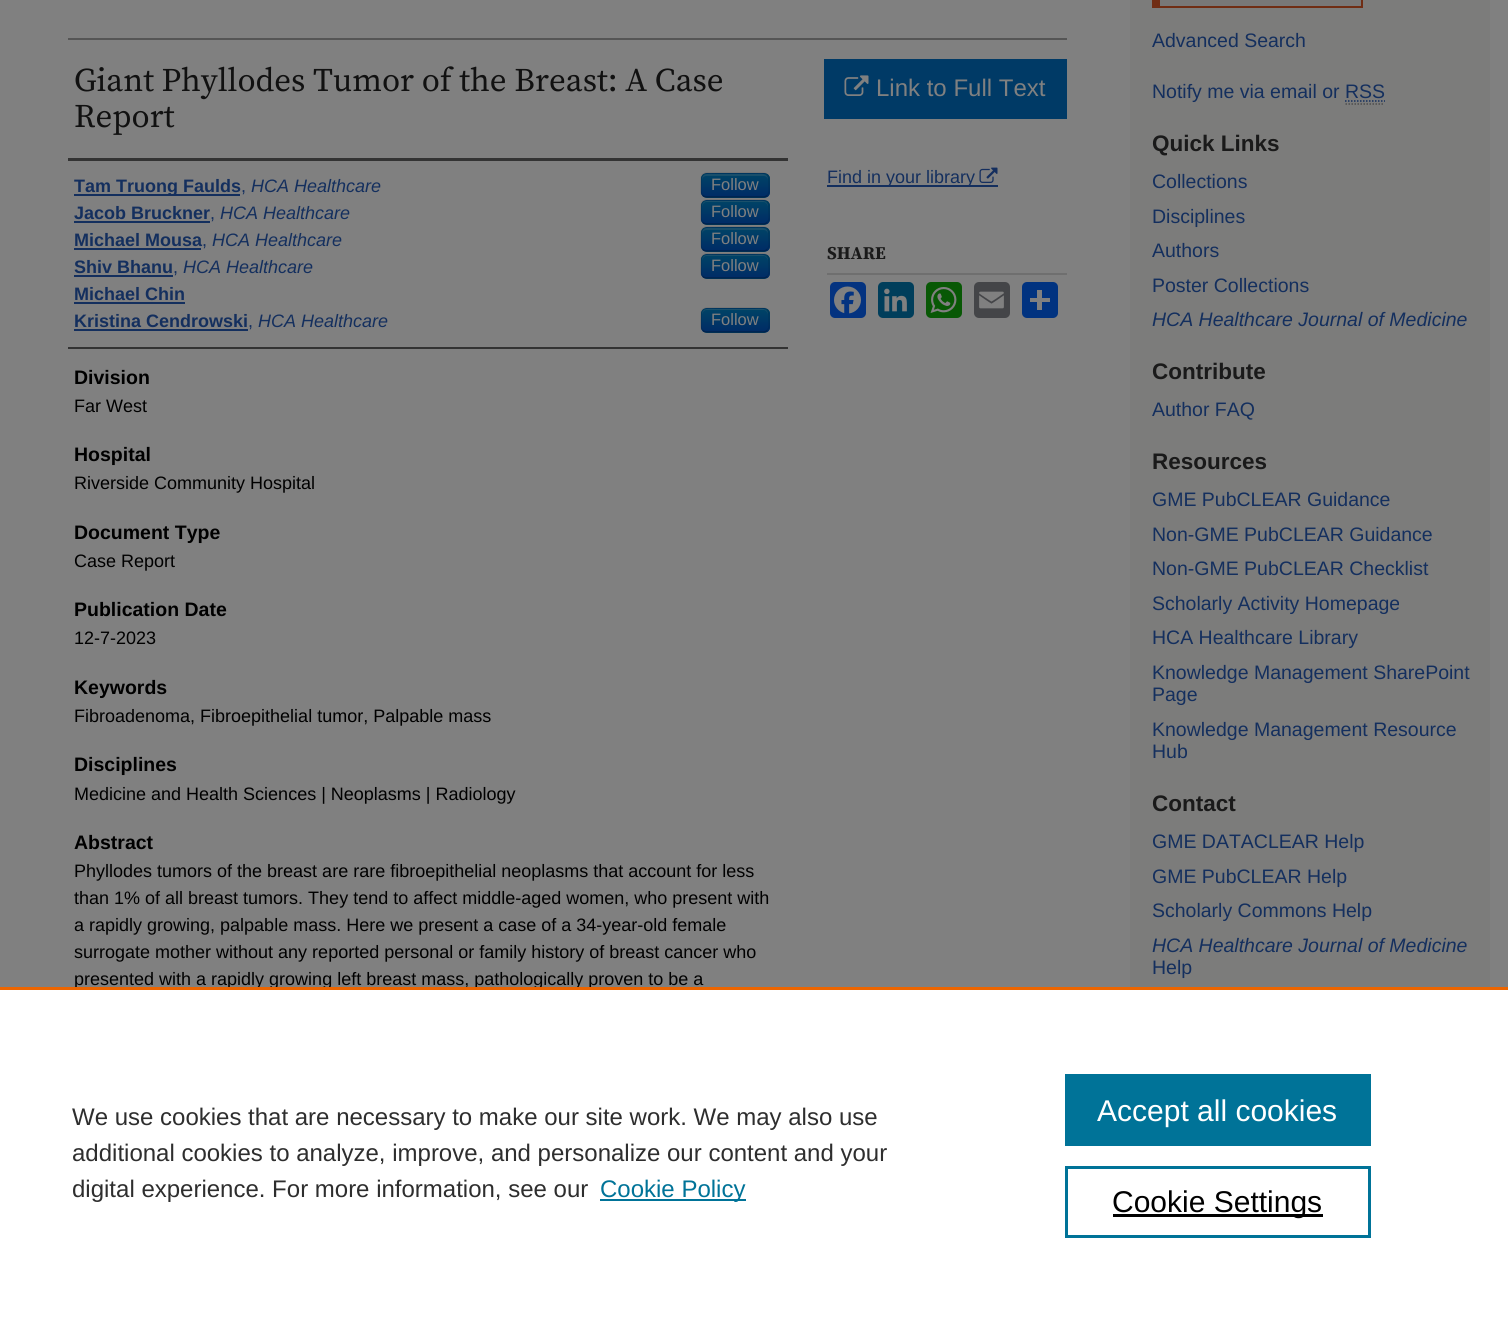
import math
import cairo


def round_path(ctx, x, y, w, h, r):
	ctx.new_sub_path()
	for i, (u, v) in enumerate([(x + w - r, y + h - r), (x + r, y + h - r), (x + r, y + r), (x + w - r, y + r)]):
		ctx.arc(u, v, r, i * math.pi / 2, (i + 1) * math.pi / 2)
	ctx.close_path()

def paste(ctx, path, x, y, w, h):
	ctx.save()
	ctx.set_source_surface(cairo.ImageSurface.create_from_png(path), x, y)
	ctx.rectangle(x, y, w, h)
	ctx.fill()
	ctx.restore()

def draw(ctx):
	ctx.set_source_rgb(0.502, 0.502, 0.502)
	ctx.paint()
	ctx.set_source_rgb(0.486, 0.486, 0.482)
	ctx.rectangle(1130, 0, 360, 987)
	ctx.fill()
	ctx.set_source_rgb(0.333, 0.333, 0.333)
	ctx.rectangle(68, 38, 999, 2)
	ctx.fill()
	ctx.select_font_face('Source Serif Pro')
	ctx.set_font_size(33)
	ctx.set_source_rgb(0.067, 0.067, 0.067)
	ctx.move_to(74, 91)
	ctx.show_text('Giant Phyllodes Tumor of the Breast: A Case')
	ctx.move_to(74, 127)
	ctx.show_text('Report')
	ctx.set_source_rgb(0.2, 0.2, 0.2)
	ctx.rectangle(68, 158, 720, 3)
	ctx.rectangle(68, 347, 720, 2)
	ctx.fill()
	ctx.set_source_rgb(0.082, 0.184, 0.369)
	ctx.rectangle(74, 194, 166, 2)
	ctx.fill()
	ctx.select_font_face('Liberation Sans', cairo.FONT_SLANT_NORMAL, cairo.FONT_WEIGHT_BOLD)
	ctx.set_font_size(18)
	ctx.move_to(74, 192)
	ctx.show_text('Tam Truong Faulds')
	ctx.select_font_face('Liberation Sans')
	ctx.move_to(241, 192)
	ctx.show_text(',')
	ctx.select_font_face('Liberation Sans', cairo.FONT_SLANT_ITALIC)
	ctx.move_to(251, 192)
	ctx.show_text('HCA Healthcare')
	ctx.set_source_rgb(0, 0.227, 0.4)
	round_path(ctx, 701, 173, 69, 25, 6)
	ctx.fill()
	ctx.save()
	round_path(ctx, 701, 173, 69, 25, 6)
	ctx.clip()
	gradient = cairo.LinearGradient(735, 174, 735, 197)
	gradient.add_color_stop_rgba(0, 0, 0.267, 0.4, 1)
	gradient.add_color_stop_rgba(1, 0, 0.169, 0.4, 1)
	ctx.set_source(gradient)
	ctx.rectangle(701, 174, 69, 23)
	ctx.fill()
	ctx.restore()
	ctx.set_source_rgba(0.502, 0.502, 0.502, 0.2)
	ctx.new_path()
	ctx.move_to(706, 176)
	ctx.line_to(764, 176)
	ctx.curve_to(766, 176, 768, 178, 768, 180)
	ctx.curve_to(768, 172, 760, 174, 754, 174)
	ctx.line_to(716, 174)
	ctx.curve_to(710, 174, 702, 172, 702, 180)
	ctx.curve_to(702, 178, 704, 176, 706, 176)
	ctx.close_path()
	ctx.fill()
	ctx.new_path()
	ctx.move_to(767, 195.5)
	ctx.curve_to(766, 196.5, 765, 197, 763.5, 197)
	ctx.line_to(706.5, 197)
	ctx.curve_to(705, 197, 704, 196.5, 703, 195.5)
	ctx.set_source_rgba(0, 0, 0, 0.25)
	ctx.set_line_width(1.5)
	ctx.stroke()
	ctx.new_path()
	ctx.move_to(703, 195.5)
	ctx.curve_to(700, 193, 701, 188.5, 701, 185)
	ctx.curve_to(701, 172, 702, 173, 716, 173)
	ctx.line_to(754, 173)
	ctx.curve_to(768, 173, 769, 172, 769, 185)
	ctx.curve_to(769, 188.5, 770, 193, 767, 195.5)
	ctx.set_source_rgba(0, 0, 0, 0.1)
	ctx.stroke()
	ctx.select_font_face('Liberation Sans')
	ctx.set_font_size(16.5)
	ctx.set_source_rgb(0.502, 0.502, 0.502)
	ctx.move_to(711, 190)
	ctx.show_text('Follow')
	ctx.select_font_face('Liberation Sans', cairo.FONT_SLANT_NORMAL, cairo.FONT_WEIGHT_BOLD)
	ctx.set_font_size(18)
	ctx.set_source_rgb(0.082, 0.184, 0.369)
	ctx.move_to(74, 219)
	ctx.show_text('Jacob Bruckner')
	ctx.rectangle(74, 221, 136, 2)
	ctx.fill()
	ctx.select_font_face('Liberation Sans')
	ctx.move_to(210, 219)
	ctx.show_text(',')
	ctx.select_font_face('Liberation Sans', cairo.FONT_SLANT_ITALIC)
	ctx.move_to(220, 219)
	ctx.show_text('HCA Healthcare')
	ctx.set_source_rgb(0, 0.227, 0.4)
	round_path(ctx, 701, 200, 69, 25, 6)
	ctx.fill()
	ctx.save()
	round_path(ctx, 701, 200, 69, 25, 6)
	ctx.clip()
	gradient = cairo.LinearGradient(735, 201, 735, 224)
	gradient.add_color_stop_rgba(0, 0, 0.267, 0.4, 1)
	gradient.add_color_stop_rgba(1, 0, 0.169, 0.4, 1)
	ctx.set_source(gradient)
	ctx.rectangle(701, 201, 69, 23)
	ctx.fill()
	ctx.restore()
	ctx.set_source_rgb(0.102, 0.314, 0.42)
	ctx.new_path()
	ctx.move_to(706, 202)
	ctx.line_to(764, 202)
	ctx.curve_to(766, 202, 768, 205, 768, 207)
	ctx.curve_to(768, 199, 760, 201, 754, 201)
	ctx.line_to(716, 201)
	ctx.curve_to(710, 201, 702, 199, 702, 207)
	ctx.curve_to(702, 205, 704, 202, 706, 202)
	ctx.close_path()
	ctx.fill()
	ctx.new_path()
	ctx.move_to(767, 222.5)
	ctx.curve_to(766, 223.5, 765, 224, 763.5, 224)
	ctx.line_to(706.5, 224)
	ctx.curve_to(705, 224, 704, 223.5, 703, 222.5)
	ctx.set_source_rgba(0, 0, 0, 0.25)
	ctx.stroke()
	ctx.new_path()
	ctx.move_to(703, 222.5)
	ctx.curve_to(700, 220, 701, 215.5, 701, 212)
	ctx.curve_to(701, 199, 702, 200, 716, 200)
	ctx.line_to(754, 200)
	ctx.curve_to(768, 200, 769, 199, 769, 212)
	ctx.curve_to(769, 215.5, 770, 220, 767, 222.5)
	ctx.set_source_rgba(0, 0, 0, 0.1)
	ctx.stroke()
	ctx.select_font_face('Liberation Sans')
	ctx.set_font_size(16.5)
	ctx.set_source_rgb(0.502, 0.502, 0.502)
	ctx.move_to(711, 217)
	ctx.show_text('Follow')
	ctx.select_font_face('Liberation Sans', cairo.FONT_SLANT_NORMAL, cairo.FONT_WEIGHT_BOLD)
	ctx.set_font_size(18)
	ctx.set_source_rgb(0.082, 0.184, 0.369)
	ctx.move_to(74, 246)
	ctx.show_text('Michael Mousa')
	ctx.rectangle(74, 248, 127, 2)
	ctx.fill()
	ctx.select_font_face('Liberation Sans')
	ctx.move_to(202, 246)
	ctx.show_text(',')
	ctx.select_font_face('Liberation Sans', cairo.FONT_SLANT_ITALIC)
	ctx.move_to(212, 246)
	ctx.show_text('HCA Healthcare')
	ctx.set_source_rgb(0, 0.227, 0.4)
	round_path(ctx, 701, 227, 69, 25, 6)
	ctx.fill()
	ctx.save()
	round_path(ctx, 701, 227, 69, 25, 6)
	ctx.clip()
	gradient = cairo.LinearGradient(735, 228, 735, 251)
	gradient.add_color_stop_rgba(0, 0, 0.267, 0.4, 1)
	gradient.add_color_stop_rgba(1, 0, 0.169, 0.4, 1)
	ctx.set_source(gradient)
	ctx.rectangle(701, 228, 69, 23)
	ctx.fill()
	ctx.restore()
	ctx.set_source_rgba(0.502, 0.502, 0.502, 0.2)
	ctx.new_path()
	ctx.move_to(706, 230)
	ctx.line_to(764, 230)
	ctx.curve_to(766, 230, 768, 232, 768, 234)
	ctx.curve_to(768, 226, 760, 228, 754, 228)
	ctx.line_to(716, 228)
	ctx.curve_to(710, 228, 702, 226, 702, 234)
	ctx.curve_to(702, 232, 704, 230, 706, 230)
	ctx.close_path()
	ctx.fill()
	ctx.new_path()
	ctx.move_to(767, 249.5)
	ctx.curve_to(766, 250.5, 765, 251, 763.5, 251)
	ctx.line_to(706.5, 251)
	ctx.curve_to(705, 251, 704, 250.5, 703, 249.5)
	ctx.set_source_rgba(0, 0, 0, 0.25)
	ctx.stroke()
	ctx.new_path()
	ctx.move_to(703, 249.5)
	ctx.curve_to(700, 247, 701, 242.5, 701, 239)
	ctx.curve_to(701, 226, 702, 227, 716, 227)
	ctx.line_to(754, 227)
	ctx.curve_to(768, 227, 769, 226, 769, 239)
	ctx.curve_to(769, 242.5, 770, 247, 767, 249.5)
	ctx.set_source_rgba(0, 0, 0, 0.1)
	ctx.stroke()
	ctx.select_font_face('Liberation Sans')
	ctx.set_font_size(16.5)
	ctx.set_source_rgb(0.502, 0.502, 0.502)
	ctx.move_to(711, 244)
	ctx.show_text('Follow')
	ctx.select_font_face('Liberation Sans', cairo.FONT_SLANT_NORMAL, cairo.FONT_WEIGHT_BOLD)
	ctx.set_font_size(18)
	ctx.set_source_rgb(0.082, 0.184, 0.369)
	ctx.move_to(74, 273)
	ctx.show_text('Shiv Bhanu')
	ctx.rectangle(74, 275, 99, 2)
	ctx.fill()
	ctx.select_font_face('Liberation Sans')
	ctx.move_to(173, 273)
	ctx.show_text(',')
	ctx.select_font_face('Liberation Sans', cairo.FONT_SLANT_ITALIC)
	ctx.move_to(183, 273)
	ctx.show_text('HCA Healthcare')
	ctx.set_source_rgb(0, 0.227, 0.4)
	round_path(ctx, 701, 254, 69, 25, 6)
	ctx.fill()
	ctx.save()
	round_path(ctx, 701, 254, 69, 25, 6)
	ctx.clip()
	gradient = cairo.LinearGradient(735, 255, 735, 278)
	gradient.add_color_stop_rgba(0, 0, 0.267, 0.4, 1)
	gradient.add_color_stop_rgba(1, 0, 0.169, 0.4, 1)
	ctx.set_source(gradient)
	ctx.rectangle(701, 255, 69, 23)
	ctx.fill()
	ctx.restore()
	ctx.set_source_rgb(0.102, 0.314, 0.42)
	ctx.new_path()
	ctx.move_to(706, 256)
	ctx.line_to(764, 256)
	ctx.curve_to(766, 256, 768, 259, 768, 261)
	ctx.curve_to(768, 253, 760, 255, 754, 255)
	ctx.line_to(716, 255)
	ctx.curve_to(710, 255, 702, 253, 702, 261)
	ctx.curve_to(702, 259, 704, 256, 706, 256)
	ctx.close_path()
	ctx.fill()
	ctx.new_path()
	ctx.move_to(767, 276.5)
	ctx.curve_to(766, 277.5, 765, 278, 763.5, 278)
	ctx.line_to(706.5, 278)
	ctx.curve_to(705, 278, 704, 277.5, 703, 276.5)
	ctx.set_source_rgba(0, 0, 0, 0.25)
	ctx.stroke()
	ctx.new_path()
	ctx.move_to(703, 276.5)
	ctx.curve_to(700, 274, 701, 269.5, 701, 266)
	ctx.curve_to(701, 253, 702, 254, 716, 254)
	ctx.line_to(754, 254)
	ctx.curve_to(768, 254, 769, 253, 769, 266)
	ctx.curve_to(769, 269.5, 770, 274, 767, 276.5)
	ctx.set_source_rgba(0, 0, 0, 0.1)
	ctx.stroke()
	ctx.select_font_face('Liberation Sans')
	ctx.set_font_size(16.5)
	ctx.set_source_rgb(0.502, 0.502, 0.502)
	ctx.move_to(711, 271)
	ctx.show_text('Follow')
	ctx.select_font_face('Liberation Sans', cairo.FONT_SLANT_NORMAL, cairo.FONT_WEIGHT_BOLD)
	ctx.set_font_size(18)
	ctx.set_source_rgb(0.082, 0.184, 0.369)
	ctx.move_to(74, 300)
	ctx.show_text('Michael Chin')
	ctx.rectangle(74, 302, 111, 2)
	ctx.fill()
	ctx.move_to(74, 327)
	ctx.show_text('Kristina Cendrowski')
	ctx.rectangle(74, 329, 174, 2)
	ctx.fill()
	ctx.select_font_face('Liberation Sans')
	ctx.move_to(248, 327)
	ctx.show_text(',')
	ctx.select_font_face('Liberation Sans', cairo.FONT_SLANT_ITALIC)
	ctx.move_to(258, 327)
	ctx.show_text('HCA Healthcare')
	ctx.set_source_rgb(0, 0.227, 0.4)
	round_path(ctx, 701, 308, 69, 25, 6)
	ctx.fill()
	ctx.save()
	round_path(ctx, 701, 308, 69, 25, 6)
	ctx.clip()
	gradient = cairo.LinearGradient(735, 309, 735, 332)
	gradient.add_color_stop_rgba(0, 0, 0.267, 0.4, 1)
	gradient.add_color_stop_rgba(1, 0, 0.169, 0.4, 1)
	ctx.set_source(gradient)
	ctx.rectangle(701, 309, 69, 23)
	ctx.fill()
	ctx.restore()
	ctx.set_source_rgb(0.102, 0.314, 0.42)
	ctx.new_path()
	ctx.move_to(706, 310)
	ctx.line_to(764, 310)
	ctx.curve_to(766, 310, 768, 313, 768, 315)
	ctx.curve_to(768, 307, 760, 309, 754, 309)
	ctx.line_to(716, 309)
	ctx.curve_to(710, 309, 702, 307, 702, 315)
	ctx.curve_to(702, 313, 704, 310, 706, 310)
	ctx.close_path()
	ctx.fill()
	ctx.new_path()
	ctx.move_to(767, 330.5)
	ctx.curve_to(766, 331.5, 765, 332, 763.5, 332)
	ctx.line_to(706.5, 332)
	ctx.curve_to(705, 332, 704, 331.5, 703, 330.5)
	ctx.set_source_rgba(0, 0, 0, 0.25)
	ctx.stroke()
	ctx.new_path()
	ctx.move_to(703, 330.5)
	ctx.curve_to(700, 328, 701, 323.5, 701, 320)
	ctx.curve_to(701, 307, 702, 308, 716, 308)
	ctx.line_to(754, 308)
	ctx.curve_to(768, 308, 769, 307, 769, 320)
	ctx.curve_to(769, 323.5, 770, 328, 767, 330.5)
	ctx.set_source_rgba(0, 0, 0, 0.1)
	ctx.stroke()
	ctx.select_font_face('Liberation Sans')
	ctx.set_font_size(16.5)
	ctx.set_source_rgb(0.502, 0.502, 0.502)
	ctx.move_to(711, 325)
	ctx.show_text('Follow')
	ctx.select_font_face('Liberation Sans', cairo.FONT_SLANT_NORMAL, cairo.FONT_WEIGHT_BOLD)
	ctx.set_font_size(19.5)
	ctx.set_source_rgb(0, 0, 0)
	ctx.move_to(74, 384)
	ctx.show_text('Division')
	ctx.select_font_face('Liberation Sans')
	ctx.set_font_size(18)
	ctx.move_to(74, 412)
	ctx.show_text('Far West')
	ctx.select_font_face('Liberation Sans', cairo.FONT_SLANT_NORMAL, cairo.FONT_WEIGHT_BOLD)
	ctx.set_font_size(19.5)
	ctx.move_to(74, 461)
	ctx.show_text('Hospital')
	ctx.select_font_face('Liberation Sans')
	ctx.set_font_size(18)
	ctx.move_to(74, 489)
	ctx.show_text('Riverside Community Hospital')
	ctx.select_font_face('Liberation Sans', cairo.FONT_SLANT_NORMAL, cairo.FONT_WEIGHT_BOLD)
	ctx.set_font_size(19.5)
	ctx.move_to(74, 539)
	ctx.show_text('Document Type')
	ctx.select_font_face('Liberation Sans')
	ctx.set_font_size(18)
	ctx.move_to(74, 567)
	ctx.show_text('Case Report')
	ctx.select_font_face('Liberation Sans', cairo.FONT_SLANT_NORMAL, cairo.FONT_WEIGHT_BOLD)
	ctx.set_font_size(19.5)
	ctx.move_to(74, 616)
	ctx.show_text('Publication Date')
	ctx.select_font_face('Liberation Sans')
	ctx.set_font_size(18)
	ctx.move_to(74, 644)
	ctx.show_text('12-7-2023')
	ctx.select_font_face('Liberation Sans', cairo.FONT_SLANT_NORMAL, cairo.FONT_WEIGHT_BOLD)
	ctx.set_font_size(19.5)
	ctx.move_to(74, 694)
	ctx.show_text('Keywords')
	ctx.select_font_face('Liberation Sans')
	ctx.set_font_size(18)
	ctx.move_to(74, 722)
	ctx.show_text('Fibroadenoma, Fibroepithelial tumor, Palpable mass')
	ctx.select_font_face('Liberation Sans', cairo.FONT_SLANT_NORMAL, cairo.FONT_WEIGHT_BOLD)
	ctx.set_font_size(19.5)
	ctx.move_to(74, 771)
	ctx.show_text('Disciplines')
	ctx.select_font_face('Liberation Sans')
	ctx.set_font_size(18)
	ctx.move_to(74, 800)
	ctx.show_text('Medicine and Health Sciences | Neoplasms | Radiology')
	ctx.select_font_face('Liberation Sans', cairo.FONT_SLANT_NORMAL, cairo.FONT_WEIGHT_BOLD)
	ctx.set_font_size(19.5)
	ctx.move_to(74, 849)
	ctx.show_text('Abstract')
	ctx.select_font_face('Liberation Sans')
	ctx.set_font_size(18)
	for x, y, s in [
		(74, 877, 'Phyllodes tumors of the breast are rare fibroepithelial neoplasms that account for less'),
		(74, 904, 'than 1% of all breast tumors. They tend to affect middle-aged women, who present with'),
		(74, 931, 'a rapidly growing, palpable mass. Here we present a case of a 34-year-old female'),
		(74, 958, 'surrogate mother without any reported personal or family history of breast cancer who'),
		(74, 985, 'presented with a rapidly growing left breast mass, pathologically proven to be a'),
	]:
		ctx.move_to(x, y)
		ctx.show_text(s)
	ctx.set_source_rgb(0, 0.227, 0.4)
	ctx.rectangle(824, 59, 243, 60)
	ctx.fill()
	paste(ctx, 'media/1.png', 844, 75, 25, 21)
	ctx.set_font_size(24)
	ctx.set_source_rgb(0.502, 0.502, 0.502)
	ctx.move_to(876, 96)
	ctx.show_text('Link to Full Text')
	ctx.set_source_rgb(0.082, 0.184, 0.369)
	ctx.rectangle(827, 185, 171, 2)
	ctx.fill()
	ctx.set_font_size(18)
	ctx.move_to(827, 183)
	ctx.show_text('Find in your library')
	paste(ctx, 'media/2.png', 979, 167, 19, 16)
	ctx.set_source_rgb(0.435, 0.435, 0.435)
	ctx.rectangle(827, 273, 240, 2)
	ctx.fill()
	ctx.select_font_face('Source Serif Pro', cairo.FONT_SLANT_NORMAL, cairo.FONT_WEIGHT_BOLD)
	ctx.set_source_rgb(0.102, 0.102, 0.102)
	ctx.move_to(827, 259)
	ctx.show_text('SHARE')
	ctx.set_source_rgb(0.016, 0.2, 0.502)
	round_path(ctx, 830, 282, 36, 36, 5)
	ctx.fill()
	paste(ctx, 'media/3.png', 834, 286, 27, 28)
	ctx.set_source_rgb(0, 0.243, 0.357)
	round_path(ctx, 878, 282, 36, 36, 5)
	ctx.fill()
	paste(ctx, 'media/4.png', 884, 288, 23, 24)
	ctx.set_source_rgb(0.035, 0.345, 0.02)
	round_path(ctx, 926, 282, 36, 36, 5)
	ctx.fill()
	paste(ctx, 'media/5.png', 930, 287, 27, 26)
	ctx.set_source_rgb(0.267, 0.271, 0.282)
	round_path(ctx, 974, 282, 36, 36, 5)
	ctx.fill()
	paste(ctx, 'media/6.png', 979, 291, 25, 18)
	ctx.set_source_rgb(0.004, 0.2, 0.502)
	round_path(ctx, 1022, 282, 36, 36, 5)
	ctx.fill()
	ctx.set_source_rgb(0.502, 0.502, 0.502)
	ctx.rectangle(1037, 290, 5, 20)
	ctx.rectangle(1030, 298, 20, 4)
	ctx.fill()
	ctx.set_source_rgb(0.471, 0.471, 0.471)
	ctx.rectangle(1160, 0, 201, 6)
	ctx.fill()
	ctx.set_source_rgb(0.439, 0.176, 0.082)
	ctx.rectangle(1361, 0, 2, 8)
	ctx.rectangle(1152, 6, 210, 2)
	ctx.rectangle(1152, 0, 8, 6)
	ctx.fill()
	ctx.select_font_face('Liberation Sans')
	ctx.set_font_size(19.5)
	ctx.set_source_rgb(0.082, 0.184, 0.369)
	ctx.move_to(1152, 47)
	ctx.show_text('Advanced Search')
	ctx.move_to(1152, 98)
	ctx.show_text('Notify me via email or RSS')
	ctx.new_path()
	ctx.move_to(1345, 101)
	ctx.line_to(1385, 101)
	ctx.set_dash([1.5, 1.5])
	ctx.stroke()
	ctx.new_path()
	ctx.move_to(1345.5, 104)
	ctx.line_to(1384.5, 104)
	ctx.set_source_rgb(0.302, 0.302, 0.302)
	ctx.stroke()
	ctx.select_font_face('Liberation Sans', cairo.FONT_SLANT_NORMAL, cairo.FONT_WEIGHT_BOLD)
	ctx.set_font_size(22.5)
	ctx.set_source_rgb(0.102, 0.102, 0.102)
	ctx.move_to(1152, 151)
	ctx.show_text('Quick Links')
	ctx.select_font_face('Liberation Sans')
	ctx.set_font_size(19.5)
	ctx.set_source_rgb(0.082, 0.184, 0.369)
	for x, y, s in [
		(1152, 188, 'Collections'),
		(1152, 223, 'Disciplines'),
		(1152, 257, 'Authors'),
		(1152, 292, 'Poster Collections'),
	]:
		ctx.move_to(x, y)
		ctx.show_text(s)
	ctx.select_font_face('Liberation Sans', cairo.FONT_SLANT_ITALIC)
	ctx.move_to(1152, 326)
	ctx.show_text('HCA Healthcare Journal of Medicine')
	ctx.select_font_face('Liberation Sans', cairo.FONT_SLANT_NORMAL, cairo.FONT_WEIGHT_BOLD)
	ctx.set_font_size(22.5)
	ctx.set_source_rgb(0.102, 0.102, 0.102)
	ctx.move_to(1152, 379)
	ctx.show_text('Contribute')
	ctx.select_font_face('Liberation Sans')
	ctx.set_font_size(19.5)
	ctx.set_source_rgb(0.082, 0.184, 0.369)
	ctx.move_to(1152, 416)
	ctx.show_text('Author FAQ')
	ctx.select_font_face('Liberation Sans', cairo.FONT_SLANT_NORMAL, cairo.FONT_WEIGHT_BOLD)
	ctx.set_font_size(22.5)
	ctx.set_source_rgb(0.102, 0.102, 0.102)
	ctx.move_to(1152, 469)
	ctx.show_text('Resources')
	ctx.select_font_face('Liberation Sans')
	ctx.set_font_size(19.5)
	ctx.set_source_rgb(0.082, 0.184, 0.369)
	for x, y, s in [
		(1152, 506, 'GME PubCLEAR Guidance'),
		(1152, 541, 'Non-GME PubCLEAR Guidance'),
		(1152, 575, 'Non-GME PubCLEAR Checklist'),
		(1152, 610, 'Scholarly Activity Homepage'),
		(1152, 644, 'HCA Healthcare Library'),
		(1152, 679, 'Knowledge Management SharePoint'),
		(1152, 701, 'Page'),
		(1152, 736, 'Knowledge Management Resource'),
		(1152, 758, 'Hub'),
	]:
		ctx.move_to(x, y)
		ctx.show_text(s)
	ctx.select_font_face('Liberation Sans', cairo.FONT_SLANT_NORMAL, cairo.FONT_WEIGHT_BOLD)
	ctx.set_font_size(22.5)
	ctx.set_source_rgb(0.102, 0.102, 0.102)
	ctx.move_to(1152, 811)
	ctx.show_text('Contact')
	ctx.select_font_face('Liberation Sans')
	ctx.set_font_size(19.5)
	ctx.set_source_rgb(0.082, 0.184, 0.369)
	for x, y, s in [
		(1152, 848, 'GME DATACLEAR Help'),
		(1152, 883, 'GME PubCLEAR Help'),
		(1152, 917, 'Scholarly Commons Help'),
	]:
		ctx.move_to(x, y)
		ctx.show_text(s)
	ctx.select_font_face('Liberation Sans', cairo.FONT_SLANT_ITALIC)
	ctx.move_to(1152, 952)
	ctx.show_text('HCA Healthcare Journal of Medicine')
	ctx.select_font_face('Liberation Sans')
	ctx.move_to(1152, 974)
	ctx.show_text('Help')
	ctx.set_source_rgb(1, 1, 1)
	ctx.rectangle(0, 990, 1508, 327)
	ctx.fill()
	ctx.set_source_rgb(0.922, 0.396, 0)
	ctx.rectangle(0, 987, 1508, 3)
	ctx.fill()
	ctx.set_font_size(24)
	ctx.set_source_rgb(0.18, 0.18, 0.18)
	for x, y, s in [
		(72, 1125, 'We use cookies that are necessary to make our site work. We may also use'),
		(72, 1161, 'additional cookies to analyze, improve, and personalize our content and your'),
		(72, 1197, 'digital experience. For more information, see our'),
	]:
		ctx.move_to(x, y)
		ctx.show_text(s)
	ctx.set_source_rgb(0, 0.451, 0.596)
	ctx.rectangle(600, 1199, 146, 2)
	ctx.fill()
	ctx.move_to(600, 1197)
	ctx.show_text('Cookie Policy')
	ctx.rectangle(1065, 1074, 306, 72)
	ctx.fill()
	ctx.set_font_size(30)
	ctx.set_source_rgb(1, 1, 1)
	ctx.move_to(1097, 1121)
	ctx.show_text('Accept all cookies')
	ctx.rectangle(1066.5, 1167.5, 303, 69)
	ctx.set_source_rgb(0, 0.451, 0.596)
	ctx.set_line_width(3)
	ctx.set_dash([])
	ctx.stroke()
	ctx.set_source_rgb(0, 0, 0)
	ctx.rectangle(1113, 1214, 210, 3)
	ctx.fill()
	ctx.move_to(1112, 1212)
	ctx.show_text('Cookie Settings')


surface = cairo.ImageSurface(cairo.FORMAT_RGB24, 1508, 1317)
ctx = cairo.Context(surface)
options = cairo.FontOptions()
options.set_hint_metrics(cairo.HINT_METRICS_OFF)
options.set_hint_style(cairo.HINT_STYLE_NONE)
ctx.set_font_options(options)
ctx.set_miter_limit(4)
draw(ctx)
surface.write_to_png('image.png')
